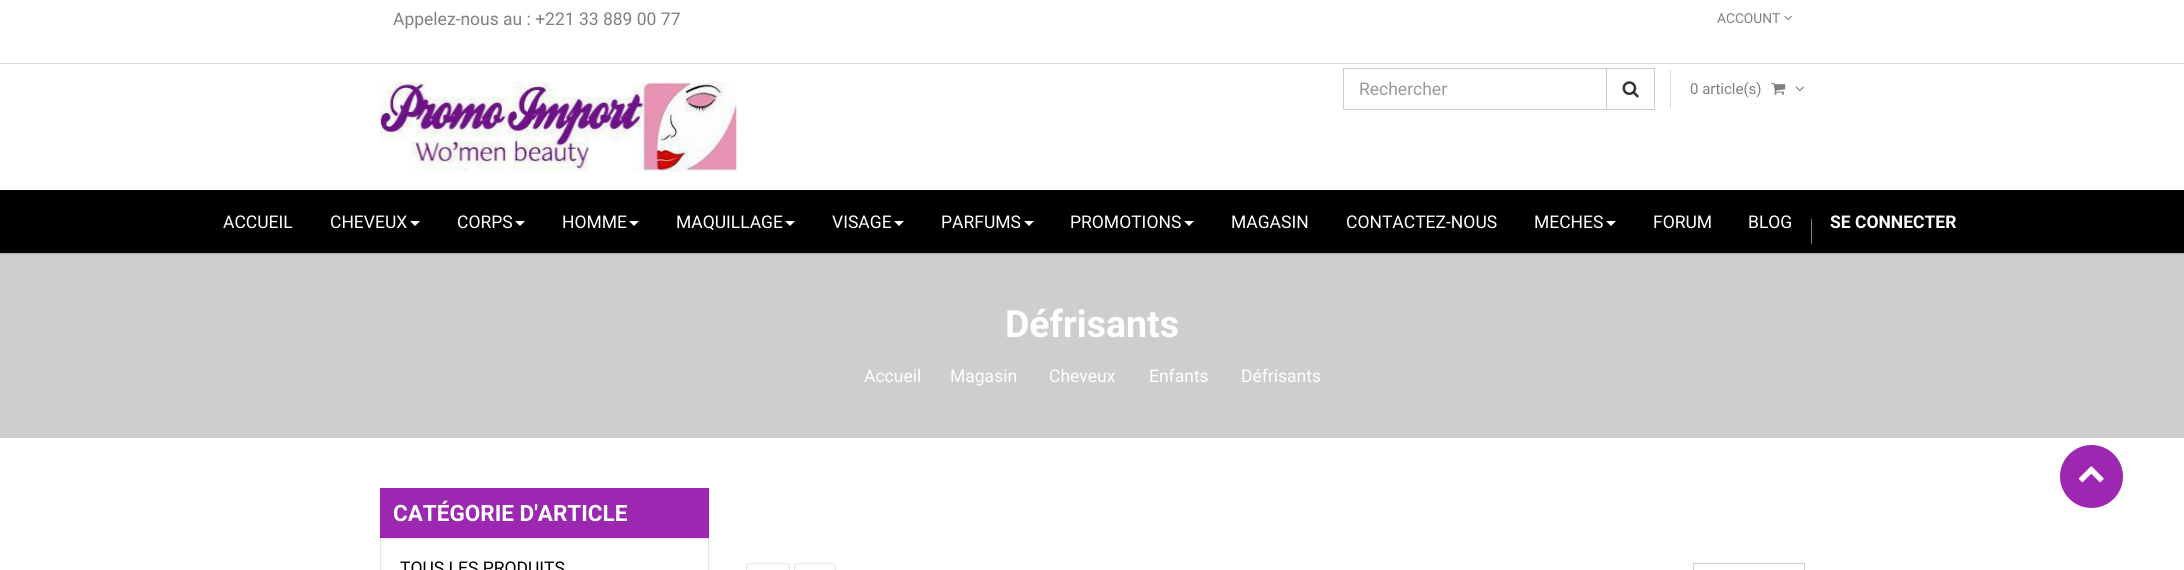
import math
import cairo


def round_path(ctx, x, y, w, h, r):
	ctx.new_sub_path()
	for i, (u, v) in enumerate([(x + w - r, y + h - r), (x + r, y + h - r), (x + r, y + r), (x + w - r, y + r)]):
		ctx.arc(u, v, r, i * math.pi / 2, (i + 1) * math.pi / 2)
	ctx.close_path()

def blur_box(ctx, x, y, w, h, r, blur, alpha):
	ctx.push_group_with_content(cairo.CONTENT_ALPHA)
	ctx.set_operator(cairo.OPERATOR_SOURCE)
	for i in range(15, -16, -2):
		e = blur * i / 6
		if min(w, h) + 2 * e > 0:
			ctx.set_source_rgba(0, 0, 0, alpha * math.erfc((i - 1) / 8.5) / 2)
			round_path(ctx, x - e, y - e, w + 2 * e, h + 2 * e, max(0, min(r + e + blur * .6, min(w, h) / 2 + e)))
			ctx.fill()
	ctx.mask(ctx.pop_group())

def paste(ctx, path, x, y, w, h):
	ctx.save()
	ctx.set_source_surface(cairo.ImageSurface.create_from_png(path), x, y)
	ctx.rectangle(x, y, w, h)
	ctx.fill()
	ctx.restore()

def draw(ctx):
	ctx.set_source_rgb(1, 1, 1)
	ctx.paint()
	ctx.set_source_rgb(0.808, 0.808, 0.808)
	ctx.rectangle(0, 253, 2184, 185)
	ctx.fill()
	ctx.set_source_rgb(0, 0, 0)
	blur_box(ctx, 0, 1, 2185, 253, 0, 1, 0.15)
	ctx.set_source_rgb(1, 1, 1)
	ctx.rectangle(0, 0, 2184, 190)
	ctx.fill()
	ctx.set_source_rgb(0.851, 0.851, 0.851)
	ctx.rectangle(0, 63, 2184, 1)
	ctx.fill()
	ctx.select_font_face('Roboto')
	ctx.set_font_size(17.5)
	ctx.set_source_rgb(0.502, 0.502, 0.502)
	ctx.move_to(393, 25)
	ctx.show_text('Appelez-nous au : +221 33 889 00 77')
	ctx.set_font_size(13.75)
	ctx.move_to(1717, 23)
	ctx.show_text('ACCOUNT')
	paste(ctx, 'media/1.png', 1784, 15, 8, 6)
	ctx.rectangle(1343.5, 68.5, 311, 41)
	ctx.set_source_rgb(0.8, 0.8, 0.8)
	ctx.set_line_width(1)
	ctx.stroke()
	ctx.set_font_size(17.5)
	ctx.set_source_rgb(0.6, 0.6, 0.6)
	ctx.move_to(1359, 95)
	ctx.show_text('Rechercher')
	ctx.rectangle(1606.5, 68.5, 48, 41)
	ctx.set_source_rgb(0.8, 0.8, 0.8)
	ctx.stroke()
	paste(ctx, 'media/2.png', 1622, 81, 17, 17)
	ctx.set_source_rgb(0.851, 0.851, 0.851)
	ctx.rectangle(1670, 70, 1, 38)
	ctx.fill()
	ctx.set_font_size(15)
	ctx.set_source_rgb(0.502, 0.502, 0.502)
	ctx.move_to(1690, 94)
	ctx.show_text('0 article(s)')
	paste(ctx, 'media/3.png', 1771, 83, 15, 12)
	paste(ctx, 'media/4.png', 1795, 86, 9, 6)
	paste(ctx, 'media/5.png', 380, 82, 357, 90)
	ctx.set_source_rgb(0, 0, 0)
	ctx.rectangle(0, 190, 2184, 63)
	ctx.fill()
	ctx.set_font_size(17.5)
	ctx.set_source_rgb(1, 1, 1)
	ctx.move_to(223, 228)
	ctx.show_text('ACCUEIL')
	ctx.move_to(330, 228)
	ctx.show_text('CHEVEUX')
	ctx.new_path()
	ctx.move_to(410, 221)
	ctx.line_to(420, 221)
	ctx.line_to(415, 226)
	ctx.close_path()
	ctx.fill()
	ctx.move_to(457, 228)
	ctx.show_text('CORPS')
	ctx.new_path()
	ctx.move_to(515, 221)
	ctx.line_to(525, 221)
	ctx.line_to(520, 226)
	ctx.close_path()
	ctx.fill()
	ctx.move_to(562, 228)
	ctx.show_text('HOMME')
	ctx.new_path()
	ctx.move_to(629, 221)
	ctx.line_to(639, 221)
	ctx.line_to(634, 226)
	ctx.close_path()
	ctx.fill()
	ctx.move_to(676, 228)
	ctx.show_text('MAQUILLAGE')
	ctx.new_path()
	ctx.move_to(785, 221)
	ctx.line_to(795, 221)
	ctx.line_to(790, 226)
	ctx.close_path()
	ctx.fill()
	ctx.move_to(832, 228)
	ctx.show_text('VISAGE')
	ctx.new_path()
	ctx.move_to(894, 221)
	ctx.line_to(904, 221)
	ctx.line_to(899, 226)
	ctx.close_path()
	ctx.fill()
	ctx.move_to(941, 228)
	ctx.show_text('PARFUMS')
	ctx.new_path()
	ctx.move_to(1024, 221)
	ctx.line_to(1034, 221)
	ctx.line_to(1029, 226)
	ctx.close_path()
	ctx.fill()
	ctx.move_to(1070, 228)
	ctx.show_text('PROMOTIONS')
	ctx.new_path()
	ctx.move_to(1184, 221)
	ctx.line_to(1194, 221)
	ctx.line_to(1189, 226)
	ctx.close_path()
	ctx.fill()
	for x, y, s in [
		(1231, 228, 'MAGASIN'),
		(1346, 228, 'CONTACTEZ-NOUS'),
		(1534, 228, 'MECHES'),
	]:
		ctx.move_to(x, y)
		ctx.show_text(s)
	ctx.new_path()
	ctx.move_to(1606, 221)
	ctx.line_to(1616, 221)
	ctx.line_to(1611, 226)
	ctx.close_path()
	ctx.fill()
	ctx.move_to(1653, 228)
	ctx.show_text('FORUM')
	ctx.move_to(1748, 228)
	ctx.show_text('BLOG')
	ctx.set_source_rgb(0.502, 0.502, 0.502)
	ctx.rectangle(1811, 219, 1, 25)
	ctx.fill()
	ctx.select_font_face('Roboto', cairo.FONT_SLANT_NORMAL, cairo.FONT_WEIGHT_BOLD)
	ctx.set_source_rgb(1, 1, 1)
	ctx.move_to(1830, 228)
	ctx.show_text('SE CONNECTER')
	ctx.set_font_size(37.5)
	ctx.move_to(1005, 337)
	ctx.show_text('Défrisants')
	ctx.select_font_face('Roboto')
	ctx.set_font_size(17.5)
	for x, y, s in [
		(864, 382, 'Accueil'),
		(950, 382, 'Magasin'),
		(1049, 382, 'Cheveux'),
		(1149, 382, 'Enfants'),
		(1241, 382, 'Défrisants'),
	]:
		ctx.move_to(x, y)
		ctx.show_text(s)
	ctx.set_source_rgb(0.612, 0.153, 0.69)
	ctx.rectangle(380, 488, 329, 50)
	ctx.fill()
	ctx.select_font_face('Roboto', cairo.FONT_SLANT_NORMAL, cairo.FONT_WEIGHT_BOLD)
	ctx.set_font_size(22.5)
	ctx.set_source_rgb(1, 1, 1)
	ctx.move_to(393, 521)
	ctx.show_text('CATÉGORIE D\'ARTICLE')
	ctx.rectangle(380.5, 538.5, 328, 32)
	ctx.set_source_rgb(0.902, 0.902, 0.902)
	ctx.stroke()
	ctx.select_font_face('Roboto')
	ctx.set_font_size(17.5)
	ctx.set_source_rgb(0, 0, 0)
	ctx.move_to(400, 574)
	ctx.show_text('TOUS LES PRODUITS')
	round_path(ctx, 746.5, 563.5, 43, 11, 3.5)
	ctx.set_source_rgb(0.902, 0.902, 0.902)
	ctx.stroke()
	round_path(ctx, 794.5, 563.5, 41, 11, 3.5)
	ctx.stroke()
	ctx.rectangle(1693.5, 563.5, 111, 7)
	ctx.set_source_rgb(0.8, 0.8, 0.8)
	ctx.stroke()
	ctx.set_source_rgb(0.612, 0.153, 0.69)
	ctx.arc(2091.5, 476.5, 31.5, 0, 2 * math.pi)
	ctx.fill()
	paste(ctx, 'media/6.png', 2078, 466, 26, 17)


surface = cairo.ImageSurface(cairo.FORMAT_RGB24, 2184, 570)
ctx = cairo.Context(surface)
options = cairo.FontOptions()
options.set_hint_metrics(cairo.HINT_METRICS_OFF)
options.set_hint_style(cairo.HINT_STYLE_NONE)
ctx.set_font_options(options)
ctx.set_miter_limit(4)
draw(ctx)
surface.write_to_png('image.png')
